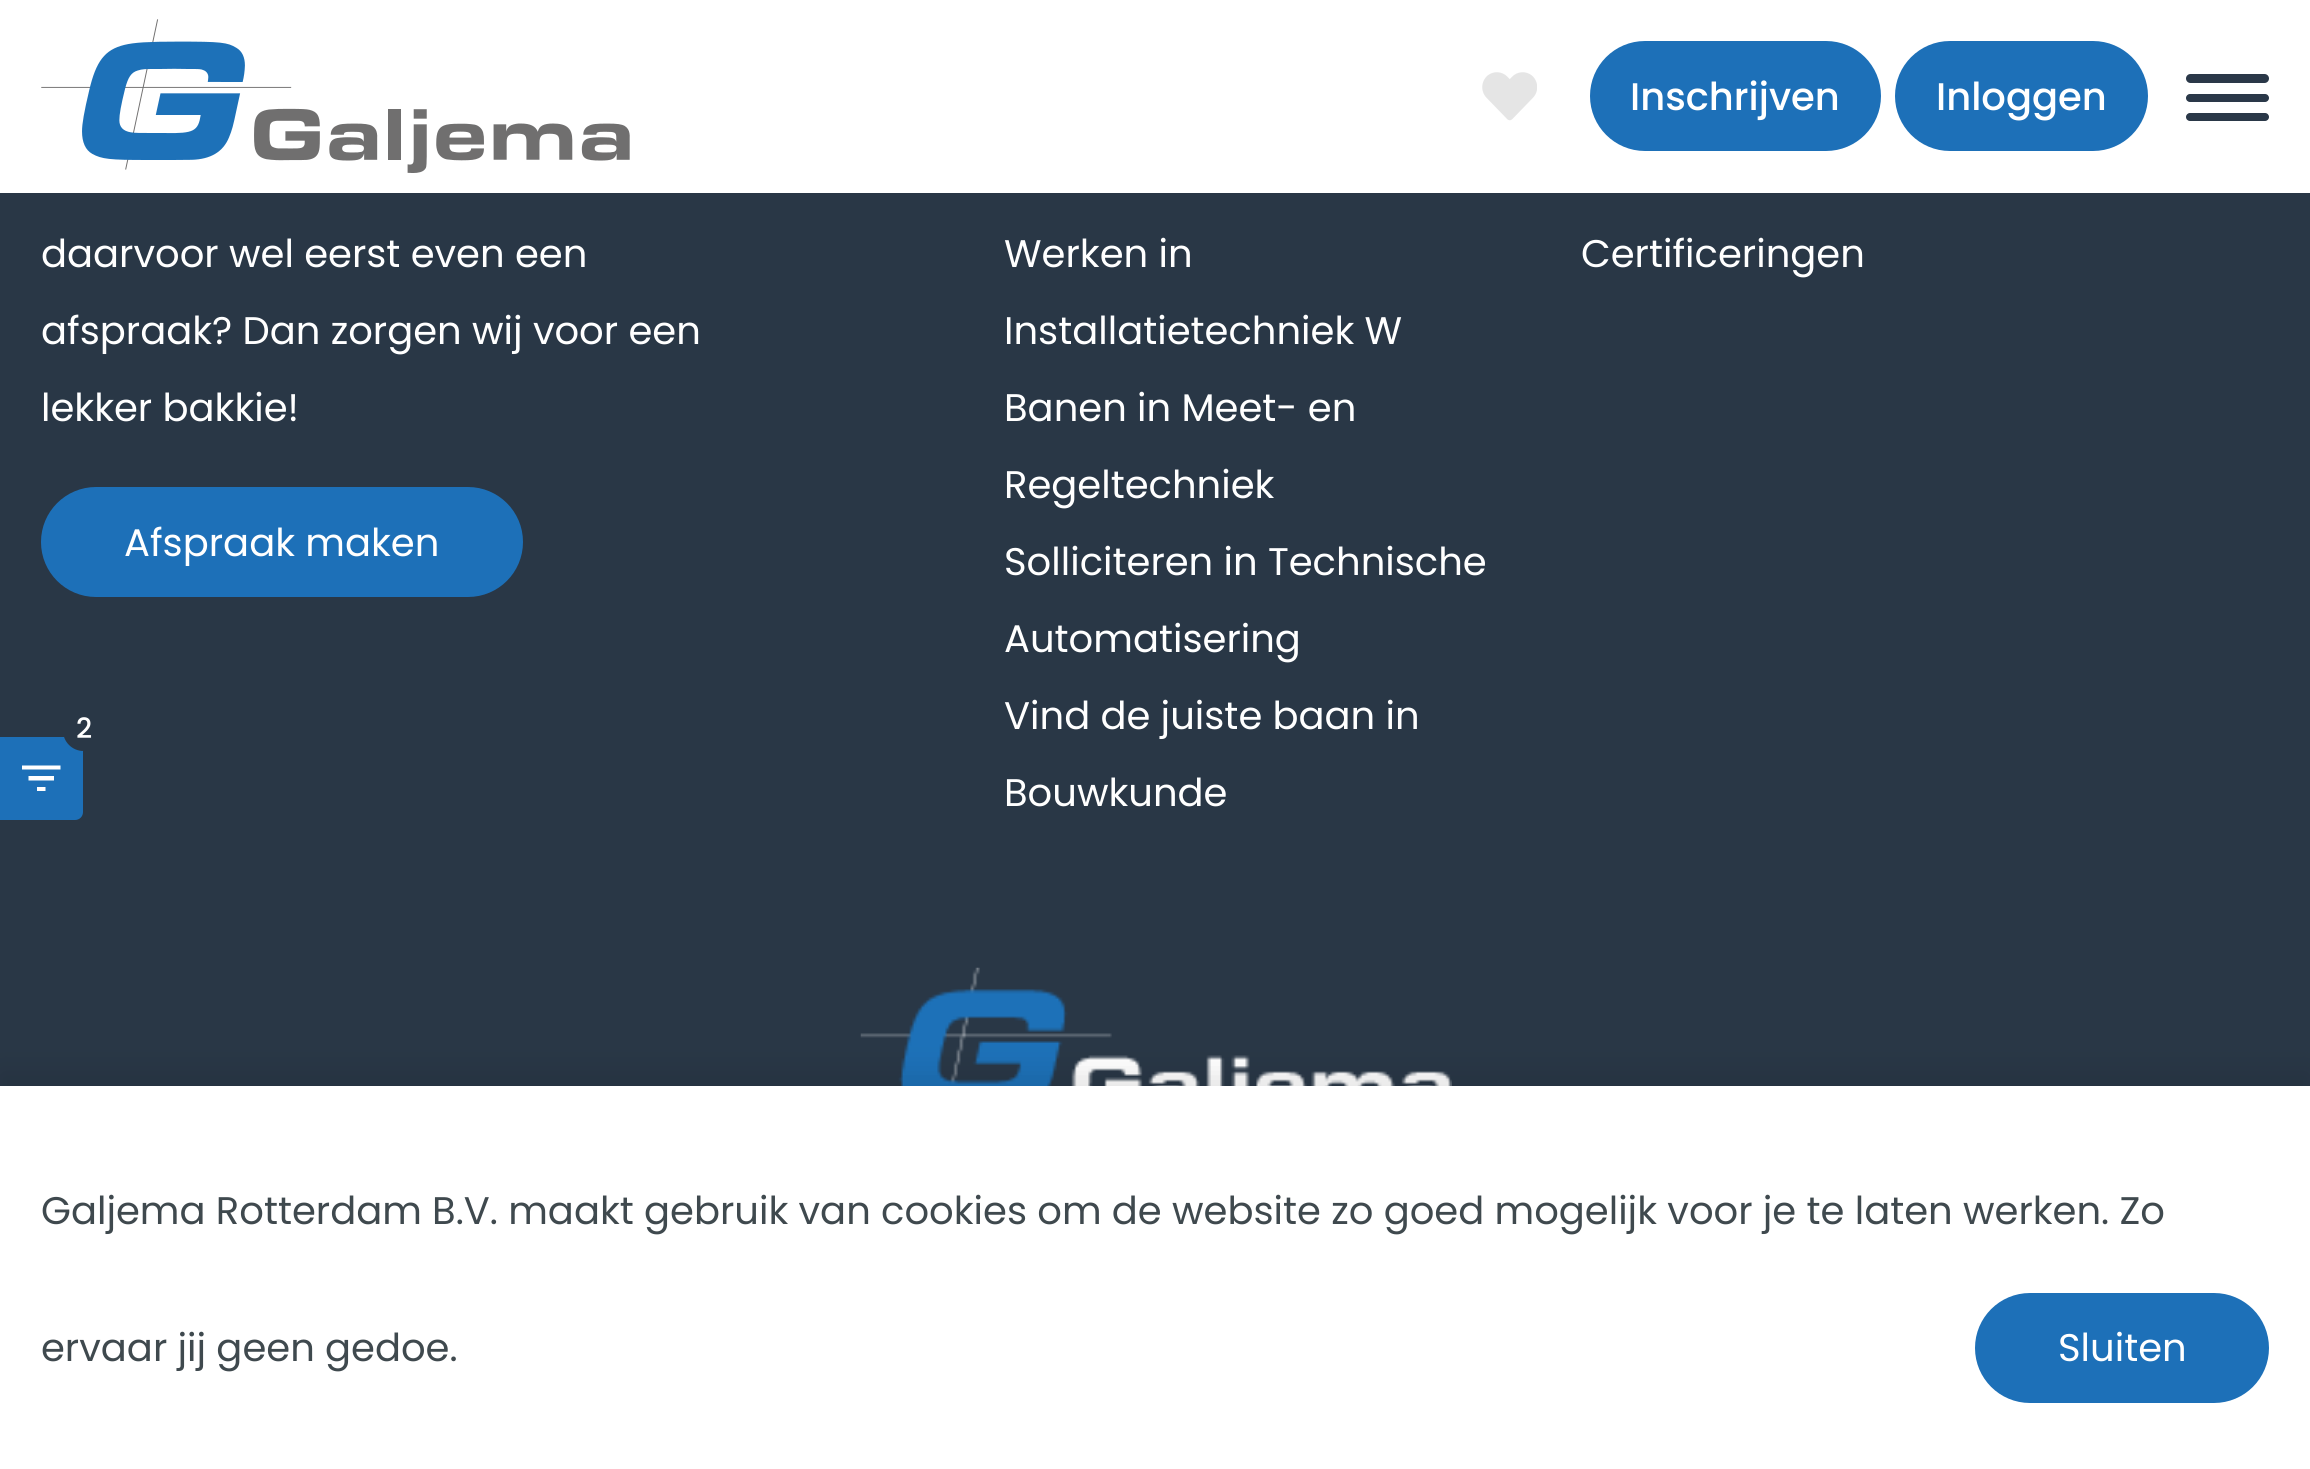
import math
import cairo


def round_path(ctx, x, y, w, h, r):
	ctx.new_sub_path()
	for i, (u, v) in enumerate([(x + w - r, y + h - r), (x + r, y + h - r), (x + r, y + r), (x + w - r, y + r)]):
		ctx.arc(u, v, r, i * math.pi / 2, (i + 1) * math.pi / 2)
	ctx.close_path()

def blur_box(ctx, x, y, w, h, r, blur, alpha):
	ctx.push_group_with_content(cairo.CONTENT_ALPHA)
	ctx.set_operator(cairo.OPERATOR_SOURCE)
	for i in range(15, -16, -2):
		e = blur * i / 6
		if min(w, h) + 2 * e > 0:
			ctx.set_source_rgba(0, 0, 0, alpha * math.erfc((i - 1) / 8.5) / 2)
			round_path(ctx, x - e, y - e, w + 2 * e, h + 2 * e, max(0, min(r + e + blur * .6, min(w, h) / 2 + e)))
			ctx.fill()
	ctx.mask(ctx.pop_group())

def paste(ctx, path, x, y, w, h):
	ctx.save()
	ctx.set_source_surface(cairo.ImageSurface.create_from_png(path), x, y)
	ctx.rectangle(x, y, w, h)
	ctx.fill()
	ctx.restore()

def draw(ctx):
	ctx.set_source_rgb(0.161, 0.216, 0.275)
	ctx.paint()
	ctx.set_source_rgb(1, 1, 1)
	ctx.rectangle(0, 0, 2310, 193)
	ctx.fill()
	paste(ctx, 'media/1.png', 41, 19, 589, 154)
	paste(ctx, 'media/2.png', 1482, 72, 55, 49)
	ctx.set_source_rgb(0.114, 0.439, 0.722)
	round_path(ctx, 1590, 41, 291, 110, 55)
	ctx.fill()
	ctx.select_font_face('Poppins Medium')
	ctx.set_font_size(38.5)
	ctx.set_source_rgb(1, 1, 1)
	ctx.move_to(1630, 110)
	ctx.show_text('Inschrijven')
	ctx.set_source_rgb(0.114, 0.439, 0.722)
	round_path(ctx, 1895, 41, 253, 110, 55)
	ctx.fill()
	ctx.set_source_rgb(1, 1, 1)
	ctx.move_to(1936, 110)
	ctx.show_text('Inloggen')
	ctx.set_source_rgb(0.165, 0.22, 0.282)
	round_path(ctx, 2186, 74, 83, 9, 4.5)
	ctx.fill()
	round_path(ctx, 2186, 94, 83, 8, 4)
	ctx.fill()
	round_path(ctx, 2186, 113, 83, 8, 4)
	ctx.fill()
	ctx.select_font_face('Poppins')
	ctx.set_source_rgb(1, 1, 1)
	for x, y, s in [
		(41, 267, 'daarvoor wel eerst even een'),
		(41, 344, 'afspraak? Dan zorgen wij voor een'),
		(41, 421, 'lekker bakkie!'),
	]:
		ctx.move_to(x, y)
		ctx.show_text(s)
	ctx.set_source_rgb(0.114, 0.439, 0.722)
	round_path(ctx, 41, 487, 482, 110, 55)
	ctx.fill()
	ctx.set_source_rgb(1, 1, 1)
	for x, y, s in [
		(124, 556, 'Afspraak maken'),
		(1004, 267, 'Werken in'),
		(1004, 344, 'Installatietechniek W'),
		(1004, 421, 'Banen in Meet- en'),
		(1004, 498, 'Regeltechniek'),
		(1004, 575, 'Solliciteren in Technische'),
		(1004, 652, 'Automatisering'),
		(1004, 729, 'Vind de juiste baan in'),
		(1004, 806, 'Bouwkunde'),
		(1581, 267, 'Certificeringen'),
	]:
		ctx.move_to(x, y)
		ctx.show_text(s)
	paste(ctx, 'media/3.png', 860, 967, 592, 119)
	ctx.set_source_rgb(0.114, 0.439, 0.722)
	ctx.new_path()
	ctx.move_to(0, 737)
	ctx.line_to(75, 737)
	ctx.curve_to(79.5, 737, 83, 740.5, 83, 745)
	ctx.line_to(83, 812)
	ctx.curve_to(83, 816.5, 79.5, 820, 75, 820)
	ctx.line_to(0, 820)
	ctx.close_path()
	ctx.fill()
	ctx.set_source_rgb(1, 1, 1)
	ctx.new_path()
	ctx.move_to(37, 791)
	ctx.line_to(45.5, 791)
	ctx.line_to(45.5, 787)
	ctx.line_to(37, 787)
	ctx.close_path()
	ctx.move_to(22, 765.5)
	ctx.line_to(22, 769.5)
	ctx.line_to(60.5, 769.5)
	ctx.line_to(60.5, 765.5)
	ctx.close_path()
	ctx.move_to(28.5, 780.5)
	ctx.line_to(54, 780.5)
	ctx.line_to(54, 776)
	ctx.line_to(28.5, 776)
	ctx.close_path()
	ctx.fill()
	ctx.set_source_rgb(0.161, 0.216, 0.275)
	round_path(ctx, 63, 710, 42, 41, 20.5)
	ctx.fill()
	ctx.select_font_face('Poppins Medium')
	ctx.set_font_size(28)
	ctx.set_source_rgb(1, 1, 1)
	ctx.move_to(76, 738)
	ctx.show_text('2')
	ctx.set_source_rgb(0, 0, 0)
	blur_box(ctx, 0, 1073, 2310, 385, 0, 14, 0.1)
	ctx.set_source_rgb(1, 1, 1)
	ctx.rectangle(0, 1086, 2310, 383)
	ctx.fill()
	ctx.select_font_face('Poppins')
	ctx.set_font_size(38.5)
	ctx.set_source_rgb(0.247, 0.286, 0.306)
	ctx.move_to(41, 1224)
	ctx.show_text('Galjema Rotterdam B.V. maakt gebruik van cookies om de website zo goed mogelijk voor je te laten werken. Zo')
	ctx.move_to(41, 1361)
	ctx.show_text('ervaar jij geen gedoe.')
	ctx.set_source_rgb(0.114, 0.439, 0.722)
	round_path(ctx, 1975, 1293, 294, 110, 55)
	ctx.fill()
	ctx.set_source_rgb(1, 1, 1)
	ctx.move_to(2058, 1361)
	ctx.show_text('Sluiten')


surface = cairo.ImageSurface(cairo.FORMAT_RGB24, 2310, 1469)
ctx = cairo.Context(surface)
options = cairo.FontOptions()
options.set_hint_metrics(cairo.HINT_METRICS_OFF)
options.set_hint_style(cairo.HINT_STYLE_NONE)
ctx.set_font_options(options)
ctx.set_miter_limit(4)
draw(ctx)
surface.write_to_png('image.png')
